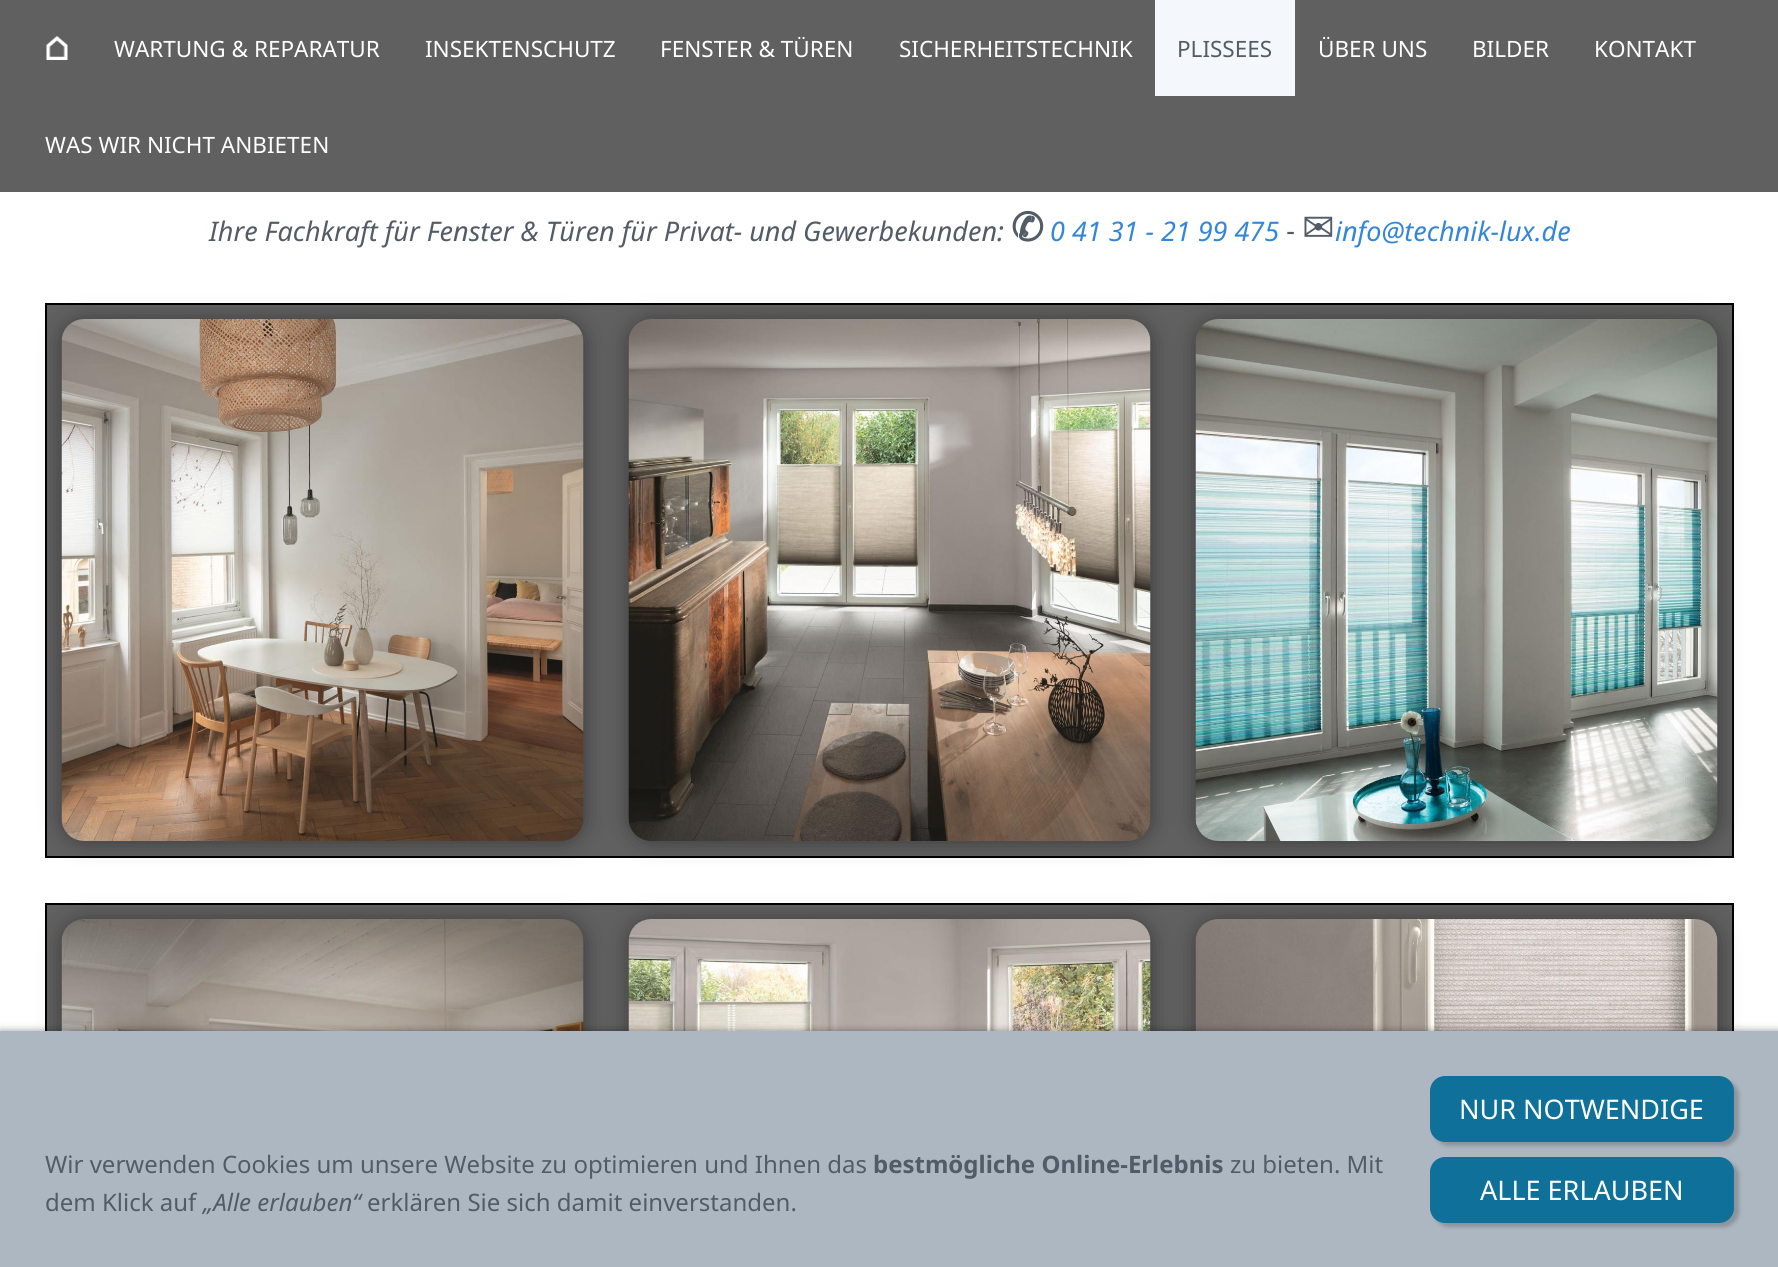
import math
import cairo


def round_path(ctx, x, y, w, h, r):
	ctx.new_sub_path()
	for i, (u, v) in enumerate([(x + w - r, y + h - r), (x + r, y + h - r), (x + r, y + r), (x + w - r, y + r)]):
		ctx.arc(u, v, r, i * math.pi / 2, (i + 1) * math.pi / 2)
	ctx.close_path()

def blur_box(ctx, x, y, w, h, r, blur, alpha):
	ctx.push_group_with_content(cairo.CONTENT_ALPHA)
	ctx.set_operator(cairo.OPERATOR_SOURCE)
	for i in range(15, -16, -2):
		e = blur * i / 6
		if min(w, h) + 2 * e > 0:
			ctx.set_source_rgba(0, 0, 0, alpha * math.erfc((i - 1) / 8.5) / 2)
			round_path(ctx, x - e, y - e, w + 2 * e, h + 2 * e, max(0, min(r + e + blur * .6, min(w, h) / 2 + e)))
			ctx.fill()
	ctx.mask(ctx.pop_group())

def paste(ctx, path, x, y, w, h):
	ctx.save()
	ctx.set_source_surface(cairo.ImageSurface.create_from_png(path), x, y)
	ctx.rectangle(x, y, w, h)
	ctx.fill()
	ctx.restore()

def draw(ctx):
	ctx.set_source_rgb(1, 1, 1)
	ctx.paint()
	ctx.set_source_rgb(0.373, 0.376, 0.373)
	ctx.rectangle(0, 0, 1778, 192)
	ctx.fill()
	paste(ctx, 'media/1.png', 46, 36, 22, 24)
	ctx.select_font_face('Noto Sans')
	ctx.set_font_size(22.5)
	ctx.set_source_rgb(1, 1, 1)
	for x, y, s in [
		(114, 57, 'WARTUNG & REPARATUR'),
		(425, 57, 'INSEKTENSCHUTZ'),
		(660, 57, 'FENSTER & TÜREN'),
		(899, 57, 'SICHERHEITSTECHNIK'),
	]:
		ctx.move_to(x, y)
		ctx.show_text(s)
	ctx.set_source_rgb(0.957, 0.969, 0.988)
	ctx.rectangle(1155, 0, 140, 96)
	ctx.fill()
	ctx.set_source_rgb(0.322, 0.361, 0.404)
	ctx.move_to(1177, 57)
	ctx.show_text('PLISSEES')
	ctx.set_source_rgb(1, 1, 1)
	for x, y, s in [
		(1318, 57, 'ÜBER UNS'),
		(1472, 57, 'BILDER'),
		(1594, 57, 'KONTAKT'),
		(45, 153, 'WAS WIR NICHT ANBIETEN'),
	]:
		ctx.move_to(x, y)
		ctx.show_text(s)
	ctx.select_font_face('Noto Sans', cairo.FONT_SLANT_ITALIC)
	ctx.set_font_size(27)
	ctx.set_source_rgb(0.322, 0.361, 0.404)
	ctx.move_to(209, 241)
	ctx.show_text('Ihre Fachkraft für Fenster & Türen für Privat- und Gewerbekunden:')
	ctx.select_font_face('DejaVu Sans', cairo.FONT_SLANT_NORMAL, cairo.FONT_WEIGHT_BOLD)
	ctx.set_font_size(39)
	ctx.move_to(1011, 241)
	ctx.show_text('✆')
	ctx.select_font_face('Noto Sans', cairo.FONT_SLANT_ITALIC)
	ctx.set_font_size(27)
	ctx.set_source_rgb(0.204, 0.525, 0.847)
	ctx.move_to(1050, 241)
	ctx.show_text('0 41 31 - 21 99 475')
	ctx.select_font_face('Noto Sans')
	ctx.set_source_rgb(0.322, 0.361, 0.404)
	ctx.move_to(1286, 241)
	ctx.show_text('-')
	ctx.select_font_face('DejaVu Sans')
	ctx.set_font_size(39)
	ctx.move_to(1302, 241)
	ctx.show_text('✉')
	ctx.select_font_face('Noto Sans', cairo.FONT_SLANT_ITALIC)
	ctx.set_font_size(27)
	ctx.set_source_rgb(0.204, 0.525, 0.847)
	ctx.move_to(1335, 241)
	ctx.show_text('info@technik-lux.de')
	ctx.set_source_rgb(0.373, 0.376, 0.373)
	ctx.rectangle(46, 304, 1687, 553)
	ctx.fill_preserve()
	ctx.set_source_rgb(0, 0, 0)
	ctx.stroke()
	ctx.set_source_rgb(0, 0, 0)
	blur_box(ctx, 62, 320, 522, 522, 23, 11, 0.4)
	paste(ctx, 'media/2.png', 61, 319, 523, 522)
	blur_box(ctx, 629, 320, 522, 522, 23, 11, 0.4)
	paste(ctx, 'media/3.png', 628, 319, 523, 522)
	blur_box(ctx, 1196, 320, 522, 522, 23, 11, 0.4)
	paste(ctx, 'media/4.png', 1195, 319, 523, 522)
	ctx.set_source_rgb(0.373, 0.376, 0.373)
	ctx.rectangle(47, 905, 1685, 126)
	ctx.fill()
	ctx.rectangle(46, 904, 1687, 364)
	ctx.set_source_rgb(0, 0, 0)
	ctx.stroke()
	ctx.set_source_rgb(0, 0, 0)
	blur_box(ctx, 62, 920, 522, 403, 23, 11, 0.4)
	paste(ctx, 'media/5.png', 61, 919, 523, 112)
	blur_box(ctx, 629, 920, 522, 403, 23, 11, 0.4)
	paste(ctx, 'media/6.png', 628, 919, 523, 112)
	blur_box(ctx, 1196, 920, 522, 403, 23, 11, 0.4)
	paste(ctx, 'media/7.png', 1195, 919, 523, 112)
	blur_box(ctx, 0, 1031, 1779, 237, 0, 4, 0.4)
	ctx.set_source_rgb(0.678, 0.718, 0.757)
	ctx.rectangle(0, 1031, 1778, 236)
	ctx.fill()
	ctx.select_font_face('Noto Sans')
	ctx.set_font_size(24)
	ctx.set_source_rgb(0.322, 0.361, 0.404)
	ctx.move_to(45, 1173)
	ctx.show_text('Wir verwenden Cookies um unsere Website zu optimieren und Ihnen das')
	ctx.select_font_face('Noto Sans', cairo.FONT_SLANT_NORMAL, cairo.FONT_WEIGHT_BOLD)
	ctx.move_to(873, 1173)
	ctx.show_text('bestmögliche Online-Erlebnis')
	ctx.select_font_face('Noto Sans')
	ctx.move_to(1230, 1173)
	ctx.show_text('zu bieten. Mit')
	ctx.move_to(45, 1211)
	ctx.show_text('dem Klick auf')
	ctx.select_font_face('Noto Sans', cairo.FONT_SLANT_ITALIC)
	ctx.move_to(203, 1211)
	ctx.show_text('„Alle erlauben“')
	ctx.select_font_face('Noto Sans')
	ctx.move_to(367, 1211)
	ctx.show_text('erklären Sie sich damit einverstanden.')
	ctx.set_source_rgb(0, 0, 0)
	blur_box(ctx, 1434, 1080, 305, 66, 15, 2, 0.2)
	ctx.set_source_rgb(0.059, 0.439, 0.604)
	round_path(ctx, 1430, 1076, 304, 66, 15)
	ctx.fill()
	ctx.set_font_size(27)
	ctx.set_source_rgb(1, 1, 1)
	ctx.move_to(1459, 1119)
	ctx.show_text('NUR NOTWENDIGE')
	ctx.set_source_rgb(0, 0, 0)
	blur_box(ctx, 1434, 1161, 305, 66, 15, 2, 0.2)
	ctx.set_source_rgb(0.059, 0.439, 0.604)
	round_path(ctx, 1430, 1157, 304, 66, 15)
	ctx.fill()
	ctx.set_source_rgb(1, 1, 1)
	ctx.move_to(1480, 1200)
	ctx.show_text('ALLE ERLAUBEN')


surface = cairo.ImageSurface(cairo.FORMAT_RGB24, 1778, 1267)
ctx = cairo.Context(surface)
options = cairo.FontOptions()
options.set_hint_metrics(cairo.HINT_METRICS_OFF)
options.set_hint_style(cairo.HINT_STYLE_NONE)
ctx.set_font_options(options)
ctx.set_miter_limit(4)
draw(ctx)
surface.write_to_png('image.png')
